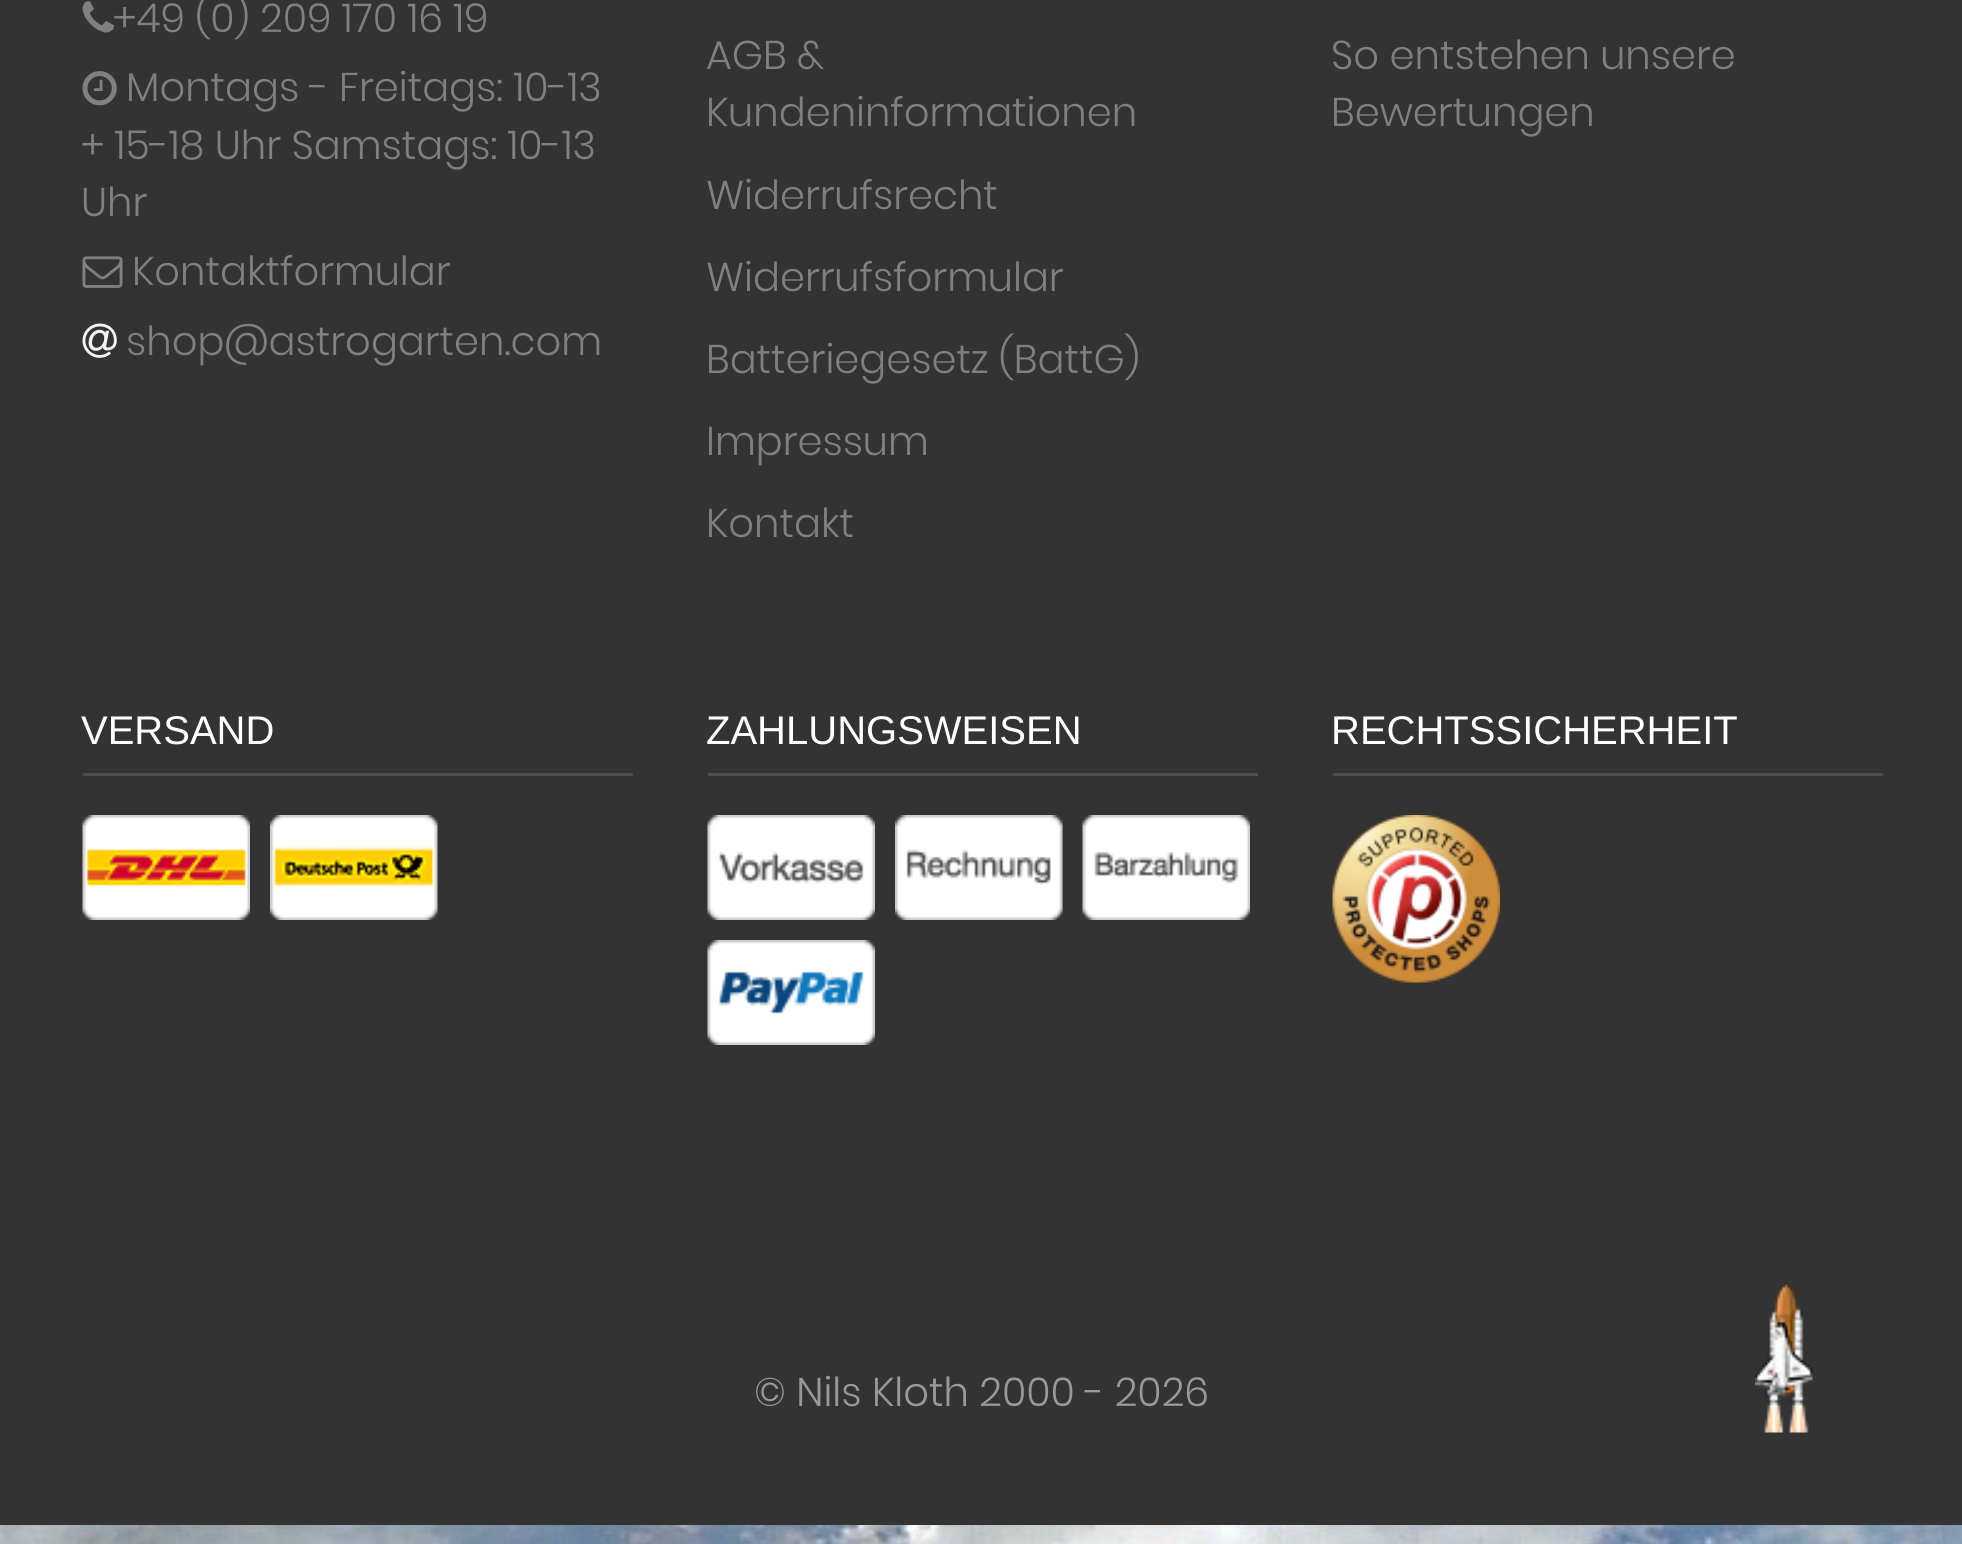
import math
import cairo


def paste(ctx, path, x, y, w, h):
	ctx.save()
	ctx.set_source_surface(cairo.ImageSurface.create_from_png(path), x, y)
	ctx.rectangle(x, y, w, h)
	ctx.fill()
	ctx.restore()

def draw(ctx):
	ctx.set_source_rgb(1, 1, 1)
	ctx.paint()
	paste(ctx, 'media/1.png', 0, 1525, 1962, 19)
	ctx.set_source_rgb(0.2, 0.2, 0.2)
	ctx.rectangle(0, 0, 1962, 1525)
	ctx.fill()
	paste(ctx, 'media/2.png', 82, 1, 32, 32)
	ctx.select_font_face('Poppins Light')
	ctx.set_font_size(40)
	ctx.set_source_rgb(0.502, 0.502, 0.502)
	ctx.move_to(113, 32)
	ctx.show_text('+49 (0) 209 170 16 19')
	paste(ctx, 'media/3.png', 82, 71, 35, 35)
	for x, y, s in [
		(126, 101, 'Montags - Freitags: 10-13'),
		(81, 159, '+ 15-18 Uhr Samstags: 10-13'),
		(81, 216, 'Uhr'),
	]:
		ctx.move_to(x, y)
		ctx.show_text(s)
	paste(ctx, 'media/4.png', 82, 256, 41, 32)
	ctx.move_to(132, 285)
	ctx.show_text('Kontaktformular')
	paste(ctx, 'media/5.png', 82, 323, 35, 35)
	for x, y, s in [
		(126, 355, 'shop@astrogarten.com'),
		(706, 69, 'AGB &'),
		(706, 126, 'Kundeninformationen'),
		(706, 209, 'Widerrufsrecht'),
		(706, 291, 'Widerrufsformular'),
		(706, 373, 'Batteriegesetz (BattG)'),
		(706, 455, 'Impressum'),
		(706, 537, 'Kontakt'),
		(1331, 69, 'So entstehen unsere'),
		(1331, 126, 'Bewertungen'),
	]:
		ctx.move_to(x, y)
		ctx.show_text(s)
	ctx.set_source_rgb(0.302, 0.302, 0.302)
	ctx.rectangle(83, 773, 550, 3)
	ctx.fill()
	ctx.select_font_face('Liberation Sans')
	ctx.set_source_rgb(1, 1, 1)
	ctx.move_to(81, 744)
	ctx.show_text('VERSAND')
	paste(ctx, 'media/6.png', 82, 815, 168, 105)
	paste(ctx, 'media/7.png', 270, 815, 168, 105)
	ctx.set_source_rgb(0.302, 0.302, 0.302)
	ctx.rectangle(708, 773, 550, 3)
	ctx.fill()
	ctx.set_source_rgb(1, 1, 1)
	ctx.move_to(706, 744)
	ctx.show_text('ZAHLUNGSWEISEN')
	paste(ctx, 'media/8.png', 707, 815, 168, 105)
	paste(ctx, 'media/9.png', 895, 815, 168, 105)
	paste(ctx, 'media/10.png', 1082, 815, 168, 105)
	paste(ctx, 'media/11.png', 707, 940, 168, 105)
	ctx.set_source_rgb(0.302, 0.302, 0.302)
	ctx.rectangle(1333, 773, 550, 3)
	ctx.fill()
	ctx.set_source_rgb(1, 1, 1)
	ctx.move_to(1331, 744)
	ctx.show_text('RECHTSSICHERHEIT')
	paste(ctx, 'media/12.png', 1332, 815, 168, 168)
	ctx.select_font_face('Poppins Light')
	ctx.set_source_rgb(0.6, 0.6, 0.6)
	ctx.move_to(754, 1406)
	ctx.show_text('© Nils Kloth 2000 - 2026')
	paste(ctx, 'media/13.png', 1755, 1282, 58, 151)


surface = cairo.ImageSurface(cairo.FORMAT_RGB24, 1962, 1544)
ctx = cairo.Context(surface)
options = cairo.FontOptions()
options.set_hint_metrics(cairo.HINT_METRICS_OFF)
options.set_hint_style(cairo.HINT_STYLE_NONE)
ctx.set_font_options(options)
ctx.set_miter_limit(4)
draw(ctx)
surface.write_to_png('image.png')
